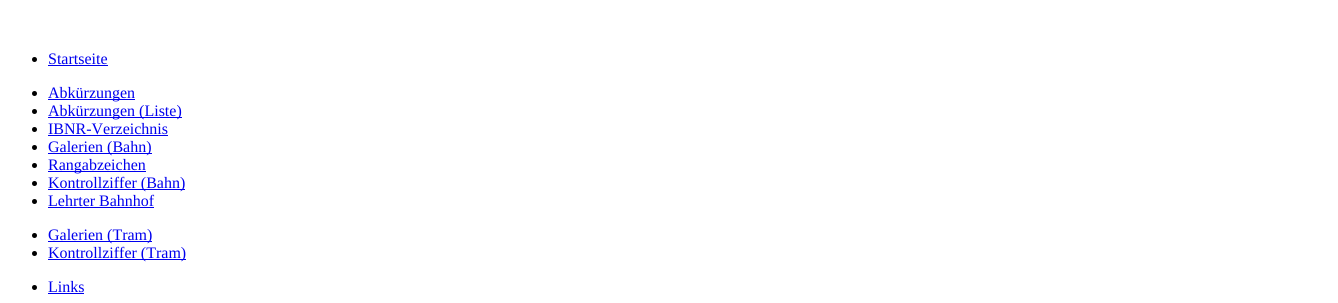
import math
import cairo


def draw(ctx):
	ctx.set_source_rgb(1, 1, 1)
	ctx.paint()
	ctx.set_source_rgb(0, 0, 0)
	ctx.arc(34.5, 59.5, 2.5, 0, 2 * math.pi)
	ctx.fill()
	ctx.select_font_face('Liberation Serif')
	ctx.set_font_size(16)
	ctx.set_source_rgb(0, 0, 0.933)
	ctx.move_to(48, 64)
	ctx.show_text('Startseite')
	ctx.rectangle(48, 65, 60, 1)
	ctx.fill()
	ctx.set_source_rgb(0, 0, 0)
	ctx.arc(34.5, 93.5, 2.5, 0, 2 * math.pi)
	ctx.fill()
	ctx.set_source_rgb(0, 0, 0.933)
	ctx.rectangle(48, 99, 87, 1)
	ctx.fill()
	ctx.move_to(48, 98)
	ctx.show_text('Abkürzungen')
	ctx.set_source_rgb(0, 0, 0)
	ctx.new_path()
	ctx.arc(34.5, 111.5, 2.5, 0, 2 * math.pi)
	ctx.fill()
	ctx.set_source_rgb(0, 0, 0.933)
	ctx.rectangle(48, 117, 134, 1)
	ctx.fill()
	ctx.move_to(48, 116)
	ctx.show_text('Abkürzungen (Liste)')
	ctx.set_source_rgb(0, 0, 0)
	ctx.new_path()
	ctx.arc(34.5, 129.5, 2.5, 0, 2 * math.pi)
	ctx.fill()
	ctx.set_source_rgb(0, 0, 0.933)
	ctx.move_to(48, 134)
	ctx.show_text('IBNR-Verzeichnis')
	ctx.rectangle(48, 135, 120, 1)
	ctx.fill()
	ctx.set_source_rgb(0, 0, 0)
	ctx.arc(34.5, 147.5, 2.5, 0, 2 * math.pi)
	ctx.fill()
	ctx.set_source_rgb(0, 0, 0.933)
	ctx.rectangle(48, 153, 104, 1)
	ctx.fill()
	ctx.move_to(48, 152)
	ctx.show_text('Galerien (Bahn)')
	ctx.set_source_rgb(0, 0, 0)
	ctx.new_path()
	ctx.arc(34.5, 165.5, 2.5, 0, 2 * math.pi)
	ctx.fill()
	ctx.set_source_rgb(0, 0, 0.933)
	ctx.rectangle(48, 171, 98, 1)
	ctx.fill()
	ctx.move_to(48, 170)
	ctx.show_text('Rangabzeichen')
	ctx.set_source_rgb(0, 0, 0)
	ctx.new_path()
	ctx.arc(34.5, 183.5, 2.5, 0, 2 * math.pi)
	ctx.fill()
	ctx.set_source_rgb(0, 0, 0.933)
	ctx.rectangle(48, 189, 137, 1)
	ctx.fill()
	ctx.move_to(48, 188)
	ctx.show_text('Kontrollziffer (Bahn)')
	ctx.set_source_rgb(0, 0, 0)
	ctx.new_path()
	ctx.arc(34.5, 201.5, 2.5, 0, 2 * math.pi)
	ctx.fill()
	ctx.set_source_rgb(0, 0, 0.933)
	ctx.move_to(48, 206)
	ctx.show_text('Lehrter Bahnhof')
	ctx.rectangle(48, 207, 106, 1)
	ctx.fill()
	ctx.set_source_rgb(0, 0, 0)
	ctx.arc(34.5, 235.5, 2.5, 0, 2 * math.pi)
	ctx.fill()
	ctx.set_source_rgb(0, 0, 0.933)
	ctx.rectangle(48, 241, 104, 1)
	ctx.fill()
	ctx.move_to(48, 240)
	ctx.show_text('Galerien (Tram)')
	ctx.set_source_rgb(0, 0, 0)
	ctx.new_path()
	ctx.arc(34.5, 253.5, 2.5, 0, 2 * math.pi)
	ctx.fill()
	ctx.set_source_rgb(0, 0, 0.933)
	ctx.rectangle(48, 259, 138, 1)
	ctx.fill()
	ctx.move_to(48, 258)
	ctx.show_text('Kontrollziffer (Tram)')
	ctx.set_source_rgb(0, 0, 0)
	ctx.new_path()
	ctx.arc(34.5, 287.5, 2.5, 0, 2 * math.pi)
	ctx.fill()
	ctx.set_source_rgb(0, 0, 0.933)
	ctx.move_to(48, 292)
	ctx.show_text('Links')
	ctx.rectangle(48, 293, 36, 1)
	ctx.fill()


surface = cairo.ImageSurface(cairo.FORMAT_RGB24, 1338, 303)
ctx = cairo.Context(surface)
options = cairo.FontOptions()
options.set_hint_metrics(cairo.HINT_METRICS_OFF)
options.set_hint_style(cairo.HINT_STYLE_NONE)
ctx.set_font_options(options)
ctx.set_miter_limit(4)
draw(ctx)
surface.write_to_png('image.png')
